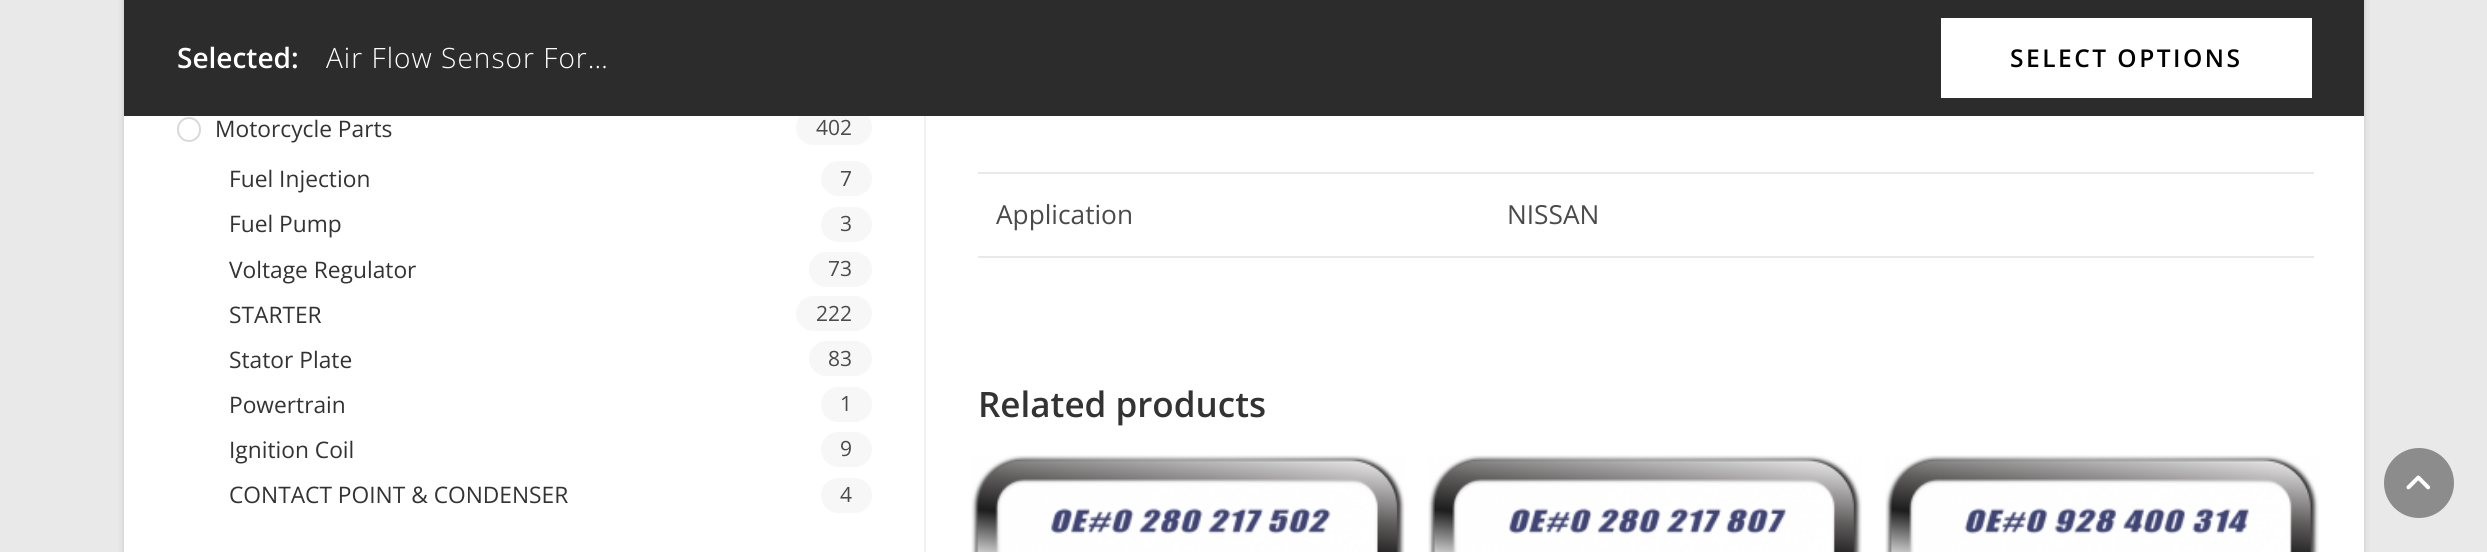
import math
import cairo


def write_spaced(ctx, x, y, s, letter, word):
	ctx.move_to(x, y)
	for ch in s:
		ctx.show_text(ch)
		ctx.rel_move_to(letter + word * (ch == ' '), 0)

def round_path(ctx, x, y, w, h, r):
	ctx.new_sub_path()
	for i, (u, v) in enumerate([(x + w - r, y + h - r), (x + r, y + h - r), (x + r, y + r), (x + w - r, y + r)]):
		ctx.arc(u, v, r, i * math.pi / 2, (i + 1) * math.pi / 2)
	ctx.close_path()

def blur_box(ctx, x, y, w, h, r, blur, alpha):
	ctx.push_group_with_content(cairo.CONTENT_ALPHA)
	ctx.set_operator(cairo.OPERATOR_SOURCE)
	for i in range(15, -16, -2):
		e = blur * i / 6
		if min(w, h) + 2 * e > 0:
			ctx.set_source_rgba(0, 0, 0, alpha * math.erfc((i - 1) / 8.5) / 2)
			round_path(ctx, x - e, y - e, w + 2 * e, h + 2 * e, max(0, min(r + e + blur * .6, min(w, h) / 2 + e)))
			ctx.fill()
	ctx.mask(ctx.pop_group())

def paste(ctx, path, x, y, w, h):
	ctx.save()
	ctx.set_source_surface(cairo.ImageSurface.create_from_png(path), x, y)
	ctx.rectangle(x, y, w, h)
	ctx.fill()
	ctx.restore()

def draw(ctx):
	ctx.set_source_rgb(0.914, 0.914, 0.914)
	ctx.paint()
	ctx.set_source_rgb(0, 0, 0)
	blur_box(ctx, 124, -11, 2240, 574, 0, 3.5, 0.15)
	ctx.set_source_rgb(1, 1, 1)
	ctx.rectangle(124, 116, 2240, 436)
	ctx.fill()
	ctx.set_source_rgb(0.965, 0.965, 0.965)
	round_path(ctx, 796, 110, 76, 35, 17.5)
	ctx.fill()
	ctx.set_source_rgb(0.173, 0.173, 0.173)
	ctx.rectangle(124, 0, 2240, 116)
	ctx.fill()
	ctx.select_font_face('Open Sans SemiBold')
	ctx.set_font_size(28)
	ctx.set_source_rgb(1, 1, 1)
	ctx.move_to(177, 68)
	ctx.show_text('Selected:')
	ctx.select_font_face('Open Sans Light')
	write_spaced(ctx, 326, 68, 'Air Flow Sensor For…', 1.05, 0)
	ctx.rectangle(1941, 18, 371, 80)
	ctx.fill()
	ctx.select_font_face('Open Sans SemiBold')
	ctx.set_font_size(24.5)
	ctx.set_source_rgb(0, 0, 0)
	write_spaced(ctx, 2010, 67, 'SELECT OPTIONS', 2.5, 0)
	round_path(ctx, 178, 118, 22, 23, 11)
	ctx.set_source_rgb(0.851, 0.851, 0.851)
	ctx.stroke()
	ctx.select_font_face('Open Sans')
	ctx.set_font_size(22.75)
	ctx.set_source_rgb(0.2, 0.2, 0.2)
	ctx.move_to(215, 137)
	ctx.show_text('Motorcycle Parts')
	ctx.set_font_size(21)
	ctx.set_source_rgb(0.29, 0.29, 0.29)
	ctx.move_to(816, 135)
	ctx.show_text('402')
	ctx.set_font_size(22.75)
	ctx.set_source_rgb(0.2, 0.2, 0.2)
	ctx.move_to(229, 187)
	ctx.show_text('Fuel Injection')
	ctx.set_source_rgb(0.965, 0.965, 0.965)
	round_path(ctx, 821, 161, 51, 35, 17.5)
	ctx.fill()
	ctx.set_font_size(21)
	ctx.set_source_rgb(0.29, 0.29, 0.29)
	ctx.move_to(840, 186)
	ctx.show_text('7')
	ctx.set_font_size(22.75)
	ctx.set_source_rgb(0.2, 0.2, 0.2)
	ctx.move_to(229, 232)
	ctx.show_text('Fuel Pump')
	ctx.set_source_rgb(0.965, 0.965, 0.965)
	round_path(ctx, 821, 207, 51, 35, 17.5)
	ctx.fill()
	ctx.set_font_size(21)
	ctx.set_source_rgb(0.29, 0.29, 0.29)
	ctx.move_to(840, 231)
	ctx.show_text('3')
	ctx.set_font_size(22.75)
	ctx.set_source_rgb(0.2, 0.2, 0.2)
	ctx.move_to(229, 278)
	ctx.show_text('Voltage Regulator')
	ctx.set_source_rgb(0.965, 0.965, 0.965)
	round_path(ctx, 809, 252, 63, 35, 17.5)
	ctx.fill()
	ctx.set_font_size(21)
	ctx.set_source_rgb(0.29, 0.29, 0.29)
	ctx.move_to(828, 276)
	ctx.show_text('73')
	ctx.set_font_size(22.75)
	ctx.set_source_rgb(0.2, 0.2, 0.2)
	ctx.move_to(229, 323)
	ctx.show_text('STARTER')
	ctx.set_source_rgb(0.965, 0.965, 0.965)
	round_path(ctx, 796, 296, 76, 35, 17.5)
	ctx.fill()
	ctx.set_font_size(21)
	ctx.set_source_rgb(0.29, 0.29, 0.29)
	ctx.move_to(816, 321)
	ctx.show_text('222')
	ctx.set_font_size(22.75)
	ctx.set_source_rgb(0.2, 0.2, 0.2)
	ctx.move_to(229, 368)
	ctx.show_text('Stator Plate')
	ctx.set_source_rgb(0.965, 0.965, 0.965)
	round_path(ctx, 809, 341, 63, 35, 17.5)
	ctx.fill()
	ctx.set_font_size(21)
	ctx.set_source_rgb(0.29, 0.29, 0.29)
	ctx.move_to(828, 366)
	ctx.show_text('83')
	ctx.set_font_size(22.75)
	ctx.set_source_rgb(0.2, 0.2, 0.2)
	ctx.move_to(229, 413)
	ctx.show_text('Powertrain')
	ctx.set_source_rgb(0.965, 0.965, 0.965)
	round_path(ctx, 821, 387, 51, 35, 17.5)
	ctx.fill()
	ctx.set_font_size(21)
	ctx.set_source_rgb(0.29, 0.29, 0.29)
	ctx.move_to(840, 411)
	ctx.show_text('1')
	ctx.set_font_size(22.75)
	ctx.set_source_rgb(0.2, 0.2, 0.2)
	ctx.move_to(229, 458)
	ctx.show_text('Ignition Coil')
	ctx.set_source_rgb(0.965, 0.965, 0.965)
	round_path(ctx, 821, 432, 51, 35, 17.5)
	ctx.fill()
	ctx.set_font_size(21)
	ctx.set_source_rgb(0.29, 0.29, 0.29)
	ctx.move_to(840, 456)
	ctx.show_text('9')
	ctx.set_font_size(22.75)
	ctx.set_source_rgb(0.2, 0.2, 0.2)
	ctx.move_to(229, 503)
	ctx.show_text('CONTACT POINT & CONDENSER')
	ctx.set_source_rgb(0.965, 0.965, 0.965)
	round_path(ctx, 821, 478, 51, 35, 17.5)
	ctx.fill()
	ctx.set_font_size(21)
	ctx.set_source_rgb(0.29, 0.29, 0.29)
	ctx.move_to(840, 502)
	ctx.show_text('4')
	ctx.set_source_rgb(0.945, 0.945, 0.945)
	ctx.rectangle(924, 116, 2, 436)
	ctx.fill()
	ctx.set_source_rgb(0.914, 0.914, 0.914)
	ctx.rectangle(978, 172, 1336, 2)
	ctx.fill()
	ctx.set_font_size(26.25)
	ctx.set_source_rgb(0.29, 0.29, 0.29)
	ctx.move_to(996, 224)
	ctx.show_text('Application')
	ctx.set_source_rgb(0.914, 0.914, 0.914)
	ctx.rectangle(978, 256, 1336, 2)
	ctx.fill()
	ctx.set_source_rgb(0.29, 0.29, 0.29)
	ctx.move_to(1507, 224)
	ctx.show_text('NISSAN')
	ctx.select_font_face('Open Sans SemiBold')
	ctx.set_font_size(35)
	ctx.set_source_rgb(0.2, 0.2, 0.2)
	ctx.move_to(978, 417)
	ctx.show_text('Related products')
	paste(ctx, 'media/1.png', 971, 455, 434, 97)
	paste(ctx, 'media/2.png', 1428, 455, 434, 97)
	paste(ctx, 'media/3.png', 1885, 455, 434, 97)
	ctx.set_source_rgb(0.549, 0.549, 0.549)
	ctx.arc(2419, 483, 35, 0, 2 * math.pi)
	ctx.fill()
	paste(ctx, 'media/4.png', 2406, 475, 25, 15)


surface = cairo.ImageSurface(cairo.FORMAT_RGB24, 2487, 552)
ctx = cairo.Context(surface)
options = cairo.FontOptions()
options.set_hint_metrics(cairo.HINT_METRICS_OFF)
options.set_hint_style(cairo.HINT_STYLE_NONE)
ctx.set_font_options(options)
ctx.set_miter_limit(4)
draw(ctx)
surface.write_to_png('image.png')
